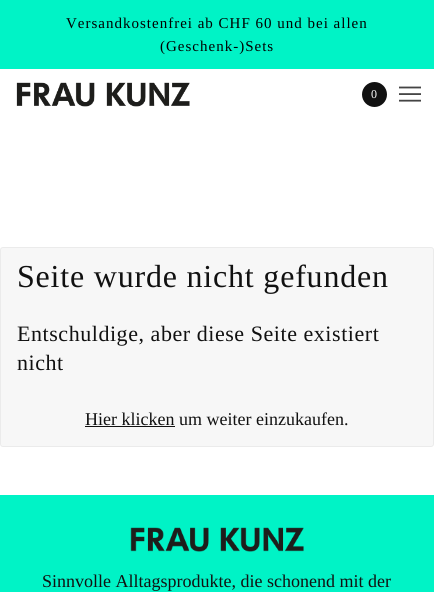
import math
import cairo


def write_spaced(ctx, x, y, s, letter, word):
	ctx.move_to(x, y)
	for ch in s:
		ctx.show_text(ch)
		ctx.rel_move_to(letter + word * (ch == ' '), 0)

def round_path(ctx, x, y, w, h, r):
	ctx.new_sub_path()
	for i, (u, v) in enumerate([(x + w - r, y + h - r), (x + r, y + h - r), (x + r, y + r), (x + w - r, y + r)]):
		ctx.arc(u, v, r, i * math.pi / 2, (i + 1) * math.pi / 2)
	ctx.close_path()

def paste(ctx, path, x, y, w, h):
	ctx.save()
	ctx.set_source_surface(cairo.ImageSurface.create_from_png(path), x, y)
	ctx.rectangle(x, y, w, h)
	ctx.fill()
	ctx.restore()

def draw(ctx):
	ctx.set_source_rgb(1, 1, 1)
	ctx.paint()
	ctx.set_source_rgb(0, 0.953, 0.776)
	ctx.rectangle(0, 0, 434, 69)
	ctx.fill()
	ctx.select_font_face('Liberation Serif')
	ctx.set_font_size(15)
	ctx.set_source_rgb(0, 0, 0)
	write_spaced(ctx, 66, 28, 'Versandkostenfrei ab CHF 60 und bei allen', 1, 0)
	write_spaced(ctx, 160, 51, '(Geschenk-)Sets', 1, 0)
	paste(ctx, 'media/1.png', 16, 82, 174, 25)
	ctx.set_source_rgb(0.067, 0.067, 0.067)
	ctx.arc(374.5, 94.5, 12.5, 0, 2 * math.pi)
	ctx.fill()
	ctx.set_font_size(12)
	ctx.set_source_rgb(1, 1, 1)
	write_spaced(ctx, 371, 98, '0', 1, 0)
	paste(ctx, 'media/2.png', 399, 86, 22, 16)
	ctx.set_source_rgb(0.965, 0.965, 0.965)
	round_path(ctx, 0.5, 247.5, 433, 199, 2.5)
	ctx.fill_preserve()
	ctx.set_source_rgb(0.918, 0.918, 0.918)
	ctx.set_line_width(1)
	ctx.stroke()
	ctx.set_font_size(32)
	ctx.set_source_rgb(0.067, 0.067, 0.067)
	write_spaced(ctx, 17, 287, 'Seite wurde nicht gefunden', 0.8, 0)
	ctx.set_font_size(22)
	write_spaced(ctx, 17, 341, 'Entschuldige, aber diese Seite existiert', 0.55, 0)
	write_spaced(ctx, 17, 370, 'nicht', 0.55, 0)
	ctx.set_font_size(18)
	ctx.move_to(85, 425)
	ctx.show_text('Hier klicken um weiter einzukaufen.')
	ctx.rectangle(85, 426, 90, 1)
	ctx.fill()
	ctx.set_source_rgb(0, 0.953, 0.776)
	ctx.rectangle(0, 495, 434, 97)
	ctx.fill()
	paste(ctx, 'media/3.png', 130, 527, 174, 25)
	ctx.set_source_rgb(0.067, 0.067, 0.067)
	ctx.move_to(42, 587)
	ctx.show_text('Sinnvolle Alltagsprodukte, die schonend mit der')


surface = cairo.ImageSurface(cairo.FORMAT_RGB24, 434, 592)
ctx = cairo.Context(surface)
options = cairo.FontOptions()
options.set_hint_metrics(cairo.HINT_METRICS_OFF)
options.set_hint_style(cairo.HINT_STYLE_NONE)
ctx.set_font_options(options)
ctx.set_miter_limit(4)
draw(ctx)
surface.write_to_png('image.png')
